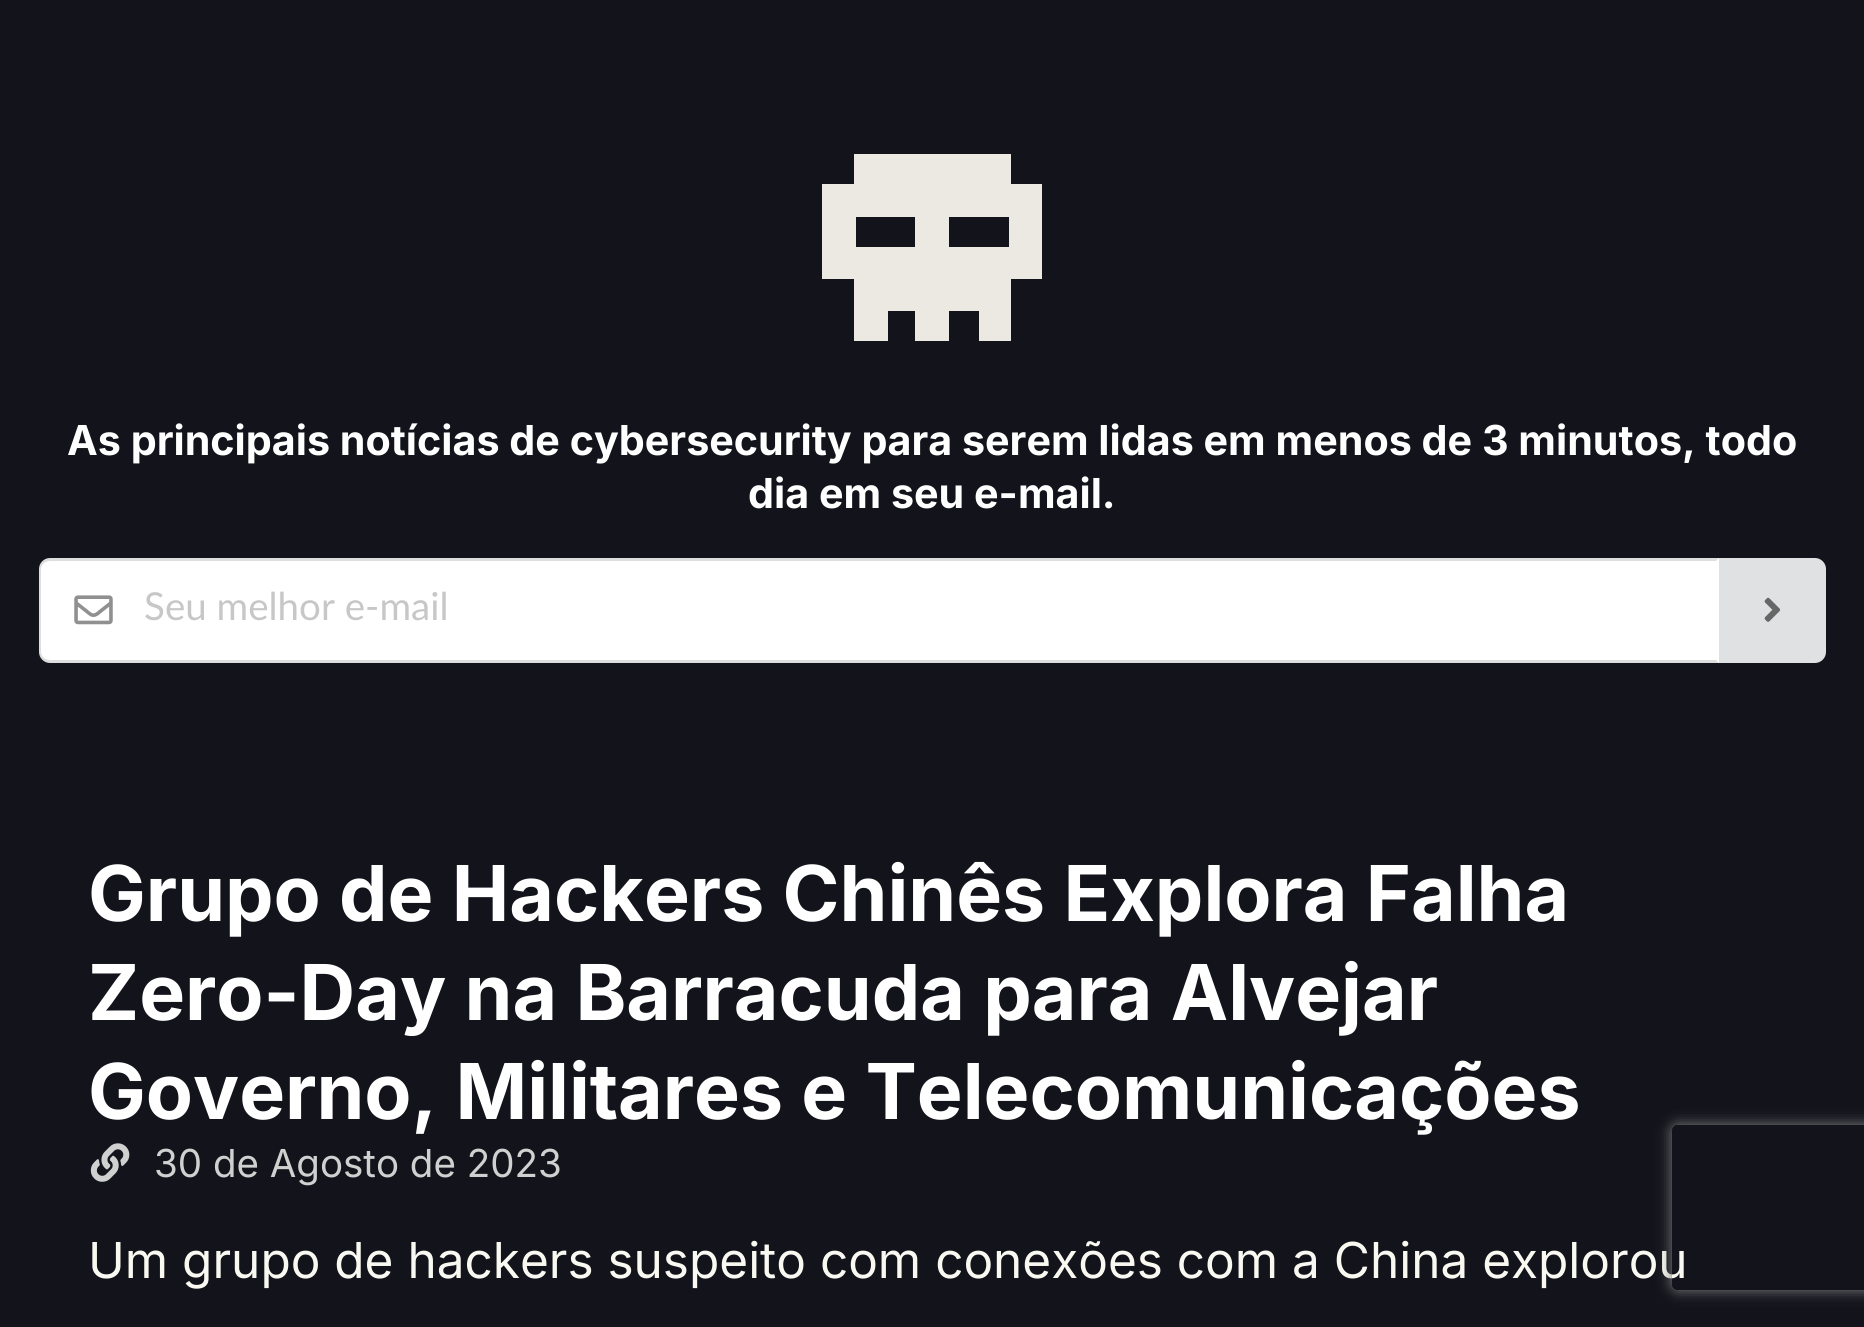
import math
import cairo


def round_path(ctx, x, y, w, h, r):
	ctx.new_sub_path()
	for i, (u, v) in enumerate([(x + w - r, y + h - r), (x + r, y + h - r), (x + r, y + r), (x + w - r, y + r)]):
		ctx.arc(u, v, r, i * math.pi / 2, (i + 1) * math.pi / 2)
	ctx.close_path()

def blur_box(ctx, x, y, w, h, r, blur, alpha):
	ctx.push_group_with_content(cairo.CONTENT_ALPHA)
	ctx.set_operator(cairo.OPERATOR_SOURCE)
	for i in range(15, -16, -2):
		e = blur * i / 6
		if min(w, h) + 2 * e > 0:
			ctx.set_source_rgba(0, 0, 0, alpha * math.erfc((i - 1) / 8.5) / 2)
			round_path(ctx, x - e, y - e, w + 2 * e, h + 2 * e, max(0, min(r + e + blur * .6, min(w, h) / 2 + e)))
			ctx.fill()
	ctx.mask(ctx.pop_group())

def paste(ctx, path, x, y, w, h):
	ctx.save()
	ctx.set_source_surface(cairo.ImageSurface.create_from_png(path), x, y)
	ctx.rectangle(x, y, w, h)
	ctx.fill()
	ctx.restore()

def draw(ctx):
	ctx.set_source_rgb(0.075, 0.082, 0.106)
	ctx.paint()
	ctx.save()
	ctx.rectangle(822, 154, 220, 187)
	ctx.clip()
	ctx.set_source_rgb(0.922, 0.914, 0.886)
	ctx.set_fill_rule(cairo.FILL_RULE_EVEN_ODD)
	ctx.new_path()
	ctx.move_to(1011, 184)
	ctx.line_to(1011, 154)
	ctx.line_to(854, 154)
	ctx.line_to(854, 184)
	ctx.line_to(822, 184)
	ctx.line_to(822, 279)
	ctx.line_to(854, 279)
	ctx.line_to(854, 342)
	ctx.line_to(888, 342)
	ctx.line_to(888, 311)
	ctx.line_to(915, 311)
	ctx.line_to(915, 342)
	ctx.line_to(949, 342)
	ctx.line_to(949, 311)
	ctx.line_to(979, 311)
	ctx.line_to(979, 342)
	ctx.line_to(1011, 342)
	ctx.line_to(1011, 279)
	ctx.line_to(1042, 279)
	ctx.line_to(1042, 184)
	ctx.close_path()
	ctx.move_to(915, 247)
	ctx.line_to(856, 247)
	ctx.line_to(856, 217)
	ctx.line_to(915, 217)
	ctx.close_path()
	ctx.move_to(1009, 247)
	ctx.line_to(949, 247)
	ctx.line_to(949, 217)
	ctx.line_to(1009, 217)
	ctx.close_path()
	ctx.fill()
	ctx.restore()
	ctx.select_font_face('Inter', cairo.FONT_SLANT_NORMAL, cairo.FONT_WEIGHT_BOLD)
	ctx.set_font_size(41.25)
	ctx.set_source_rgb(1, 1, 1)
	ctx.move_to(67, 455)
	ctx.show_text('As principais notícias de cybersecurity para serem lidas em menos de 3 minutos, todo')
	ctx.move_to(748, 508)
	ctx.show_text('dia em seu e-mail.')
	ctx.new_path()
	ctx.move_to(50, 558)
	ctx.line_to(1719, 558)
	ctx.line_to(1719, 663)
	ctx.line_to(50, 663)
	ctx.curve_to(44, 663, 39, 658, 39, 652)
	ctx.line_to(39, 569)
	ctx.curve_to(39, 563, 44, 558, 50, 558)
	ctx.close_path()
	ctx.fill()
	paste(ctx, 'media/1.png', 74, 595, 39, 30)
	ctx.set_source_rgba(0.133, 0.141, 0.149, 0.15)
	ctx.new_path()
	ctx.move_to(50, 561)
	ctx.curve_to(48, 561, 45, 562, 44, 563)
	ctx.line_to(41, 561)
	ctx.curve_to(43, 560, 45, 559, 47, 558)
	ctx.line_to(1719, 558)
	ctx.line_to(1716, 561)
	ctx.close_path()
	ctx.fill()
	ctx.new_path()
	ctx.move_to(1719, 663)
	ctx.line_to(47, 663)
	ctx.curve_to(45, 662, 43, 661, 41, 660)
	ctx.line_to(44, 658)
	ctx.curve_to(45, 659, 48, 660, 50, 660)
	ctx.line_to(1716, 660)
	ctx.close_path()
	ctx.fill()
	ctx.new_path()
	ctx.move_to(38, 566)
	ctx.curve_to(39, 564, 40, 562, 41, 561)
	ctx.line_to(44, 563)
	ctx.curve_to(42, 565, 41, 567, 41, 569)
	ctx.line_to(41, 652)
	ctx.curve_to(41, 654, 42, 656, 44, 658)
	ctx.line_to(41, 660)
	ctx.curve_to(40, 659, 39, 657, 38, 655)
	ctx.close_path()
	ctx.fill()
	ctx.select_font_face('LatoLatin')
	ctx.set_font_size(38.5)
	ctx.set_source_rgb(0.78, 0.78, 0.78)
	ctx.move_to(144, 620)
	ctx.show_text('Seu melhor e-mail')
	ctx.set_source_rgb(0.878, 0.882, 0.886)
	ctx.new_path()
	ctx.move_to(1719, 558)
	ctx.line_to(1815, 558)
	ctx.curve_to(1821, 558, 1826, 563, 1826, 569)
	ctx.line_to(1826, 652)
	ctx.curve_to(1826, 658, 1821, 663, 1815, 663)
	ctx.line_to(1719, 663)
	ctx.close_path()
	ctx.fill()
	paste(ctx, 'media/2.png', 1764, 597, 17, 25)
	ctx.select_font_face('Inter', cairo.FONT_SLANT_NORMAL, cairo.FONT_WEIGHT_BOLD)
	ctx.set_font_size(77)
	ctx.set_source_rgb(1, 1, 1)
	for x, y, s in [
		(88, 921, 'Grupo de Hackers Chinês Explora Falha'),
		(88, 1020, 'Zero-Day na Barracuda para Alvejar'),
		(88, 1119, 'Governo, Militares e Telecomunicações'),
	]:
		ctx.move_to(x, y)
		ctx.show_text(s)
	paste(ctx, 'media/3.png', 90, 1143, 40, 39)
	ctx.select_font_face('Inter')
	ctx.set_font_size(38.5)
	ctx.set_source_rgb(0.816, 0.816, 0.82)
	ctx.move_to(154, 1177)
	ctx.show_text('30 de Agosto de 2023')
	ctx.set_font_size(49.5)
	ctx.set_source_rgb(0.973, 0.973, 0.949)
	ctx.move_to(88, 1278)
	ctx.show_text('Um grupo de hackers suspeito com conexões com a China explorou')
	ctx.save()
	ctx.set_fill_rule(cairo.FILL_RULE_EVEN_ODD)
	ctx.new_path()
	ctx.move_to(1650, 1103)
	ctx.line_to(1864, 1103)
	ctx.line_to(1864, 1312)
	ctx.line_to(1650, 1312)
	ctx.close_path()
	ctx.move_to(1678, 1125)
	ctx.line_to(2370, 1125)
	ctx.curve_to(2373.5, 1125, 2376, 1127.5, 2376, 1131)
	ctx.line_to(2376, 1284)
	ctx.curve_to(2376, 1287.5, 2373.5, 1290, 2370, 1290)
	ctx.line_to(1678, 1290)
	ctx.curve_to(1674.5, 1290, 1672, 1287.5, 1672, 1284)
	ctx.line_to(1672, 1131)
	ctx.curve_to(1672, 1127.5, 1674.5, 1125, 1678, 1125)
	ctx.close_path()
	ctx.clip()
	ctx.set_source_rgb(0.502, 0.502, 0.502)
	blur_box(ctx, 1672, 1125, 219, 165, 6, 7, 1)
	ctx.restore()


surface = cairo.ImageSurface(cairo.FORMAT_RGB24, 1864, 1327)
ctx = cairo.Context(surface)
options = cairo.FontOptions()
options.set_hint_metrics(cairo.HINT_METRICS_OFF)
options.set_hint_style(cairo.HINT_STYLE_NONE)
ctx.set_font_options(options)
ctx.set_miter_limit(4)
draw(ctx)
surface.write_to_png('image.png')
